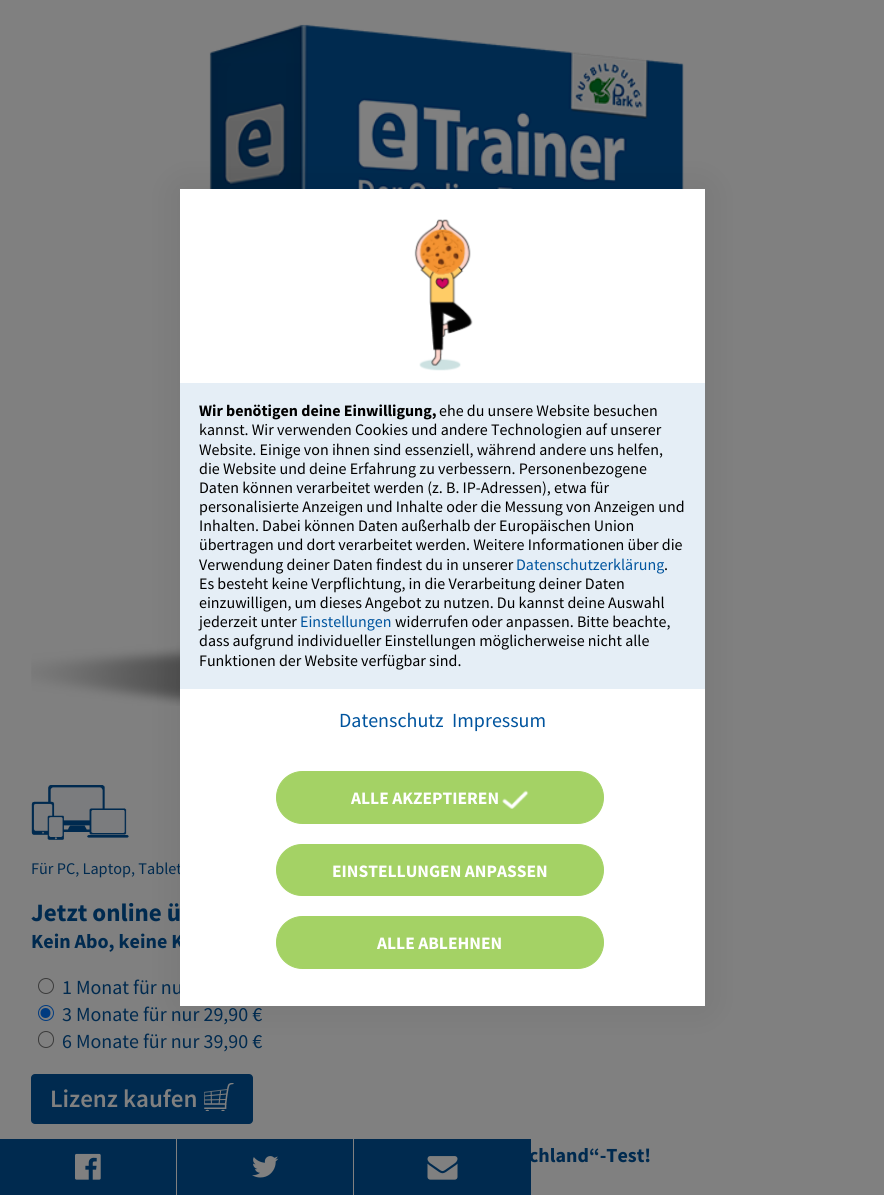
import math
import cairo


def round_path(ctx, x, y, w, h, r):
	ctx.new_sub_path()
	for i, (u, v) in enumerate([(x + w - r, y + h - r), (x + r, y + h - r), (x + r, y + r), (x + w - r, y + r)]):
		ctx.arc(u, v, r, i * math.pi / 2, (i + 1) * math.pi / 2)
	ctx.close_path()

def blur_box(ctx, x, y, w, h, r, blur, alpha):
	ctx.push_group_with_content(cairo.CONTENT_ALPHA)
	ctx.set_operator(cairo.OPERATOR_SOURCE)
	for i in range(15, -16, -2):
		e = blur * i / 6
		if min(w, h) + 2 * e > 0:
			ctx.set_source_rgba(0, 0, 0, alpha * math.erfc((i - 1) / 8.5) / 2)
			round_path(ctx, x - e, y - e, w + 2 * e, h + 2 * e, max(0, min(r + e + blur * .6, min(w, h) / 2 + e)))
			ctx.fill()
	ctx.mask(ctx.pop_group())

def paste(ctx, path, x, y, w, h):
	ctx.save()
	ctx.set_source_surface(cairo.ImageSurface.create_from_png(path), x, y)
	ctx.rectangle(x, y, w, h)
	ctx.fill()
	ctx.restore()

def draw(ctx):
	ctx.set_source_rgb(0.502, 0.502, 0.502)
	ctx.paint()
	paste(ctx, 'media/3.png', 31, 24, 653, 682)
	paste(ctx, 'media/4.png', 31, 785, 98, 55)
	ctx.set_source_rgb(0, 0, 0)
	blur_box(ctx, 180, 189, 525, 817, 0, 19, 0.08)
	ctx.select_font_face('Source Sans Pro')
	ctx.set_font_size(16.25)
	ctx.set_source_rgb(0, 0.165, 0.31)
	ctx.move_to(31, 874)
	ctx.show_text('Für PC, Laptop, Tablet')
	ctx.select_font_face('Source Sans Pro', cairo.FONT_SLANT_NORMAL, cairo.FONT_WEIGHT_BOLD)
	ctx.set_font_size(20)
	ctx.move_to(31, 948)
	ctx.show_text('Kein Abo, keine K')
	ctx.select_font_face('Source Sans Pro')
	ctx.move_to(62, 994)
	ctx.show_text('1 Monat für nu')
	ctx.set_source_rgb(1, 1, 1)
	ctx.rectangle(180, 189, 525, 817)
	ctx.fill()
	paste(ctx, 'media/1.png', 414, 219, 59, 152)
	ctx.set_source_rgb(0.898, 0.933, 0.961)
	ctx.rectangle(180, 383, 525, 306)
	ctx.fill()
	ctx.select_font_face('Source Sans Pro', cairo.FONT_SLANT_NORMAL, cairo.FONT_WEIGHT_BOLD)
	ctx.set_font_size(16)
	ctx.set_source_rgb(0, 0, 0)
	ctx.move_to(199, 416)
	ctx.show_text('Wir benötigen deine Einwilligung,')
	ctx.select_font_face('Source Sans Pro')
	for x, y, s in [
		(439, 416, 'ehe du unsere Website besuchen'),
		(199, 435, 'kannst. Wir verwenden Cookies und andere Technologien auf unserer'),
		(199, 455, 'Website. Einige von ihnen sind essenziell, während andere uns helfen,'),
		(199, 474, 'die Website und deine Erfahrung zu verbessern. Personenbezogene'),
		(199, 493, 'Daten können verarbeitet werden (z. B. IP-Adressen), etwa für'),
		(199, 512, 'personalisierte Anzeigen und Inhalte oder die Messung von Anzeigen und'),
		(199, 531, 'Inhalten. Dabei können Daten außerhalb der Europäischen Union'),
		(199, 550, 'übertragen und dort verarbeitet werden. Weitere Informationen über die'),
		(199, 570, 'Verwendung deiner Daten findest du in unserer'),
	]:
		ctx.move_to(x, y)
		ctx.show_text(s)
	ctx.set_source_rgb(0, 0.329, 0.62)
	ctx.move_to(516, 570)
	ctx.show_text('Datenschutzerklärung')
	ctx.set_source_rgb(0, 0, 0)
	for x, y, s in [
		(664, 570, '.'),
		(199, 589, 'Es besteht keine Verpflichtung, in die Verarbeitung deiner Daten'),
		(199, 608, 'einzuwilligen, um dieses Angebot zu nutzen. Du kannst deine Auswahl'),
		(199, 627, 'jederzeit unter'),
	]:
		ctx.move_to(x, y)
		ctx.show_text(s)
	ctx.set_source_rgb(0, 0.329, 0.62)
	ctx.move_to(300, 627)
	ctx.show_text('Einstellungen')
	ctx.set_source_rgb(0, 0, 0)
	for x, y, s in [
		(395, 627, 'widerrufen oder anpassen. Bitte beachte,'),
		(199, 646, 'dass aufgrund individueller Einstellungen möglicherweise nicht alle'),
		(199, 666, 'Funktionen der Website verfügbar sind.'),
	]:
		ctx.move_to(x, y)
		ctx.show_text(s)
	ctx.set_font_size(20)
	ctx.set_source_rgb(0, 0.329, 0.62)
	ctx.move_to(339, 727)
	ctx.show_text('Datenschutz')
	ctx.move_to(452, 727)
	ctx.show_text('Impressum')
	ctx.set_source_rgb(0.643, 0.824, 0.396)
	round_path(ctx, 276.5, 771.5, 327, 52, 26)
	ctx.fill_preserve()
	ctx.set_line_width(1)
	ctx.stroke()
	ctx.select_font_face('Source Sans Pro', cairo.FONT_SLANT_NORMAL, cairo.FONT_WEIGHT_BOLD)
	ctx.set_font_size(17.5)
	ctx.set_source_rgb(1, 1, 1)
	ctx.move_to(351, 804)
	ctx.show_text('ALLE AKZEPTIEREN')
	paste(ctx, 'media/2.png', 502, 790, 27, 19)
	ctx.set_source_rgb(0.643, 0.824, 0.396)
	round_path(ctx, 276.5, 844.5, 327, 51, 25.5)
	ctx.fill_preserve()
	ctx.stroke()
	ctx.set_source_rgb(1, 1, 1)
	ctx.move_to(332, 877)
	ctx.show_text('EINSTELLUNGEN ANPASSEN')
	ctx.set_source_rgb(0.643, 0.824, 0.396)
	round_path(ctx, 276.5, 916.5, 327, 52, 26)
	ctx.fill_preserve()
	ctx.stroke()
	ctx.set_source_rgb(1, 1, 1)
	ctx.move_to(377, 949)
	ctx.show_text('ALLE ABLEHNEN')
	ctx.set_font_size(25)
	ctx.set_source_rgb(0, 0.165, 0.31)
	ctx.move_to(31, 921)
	ctx.show_text('Jetzt online ü')
	ctx.new_path()
	ctx.arc(46, 986, 7.5, 0, 2 * math.pi)
	ctx.set_source_rgb(0.231, 0.231, 0.231)
	ctx.stroke()
	ctx.arc(46, 1013, 7.5, 0, 2 * math.pi)
	ctx.set_source_rgb(0, 0.231, 0.502)
	ctx.stroke()
	ctx.arc(45.5, 1013, 5, 0, 2 * math.pi)
	ctx.fill()
	ctx.select_font_face('Source Sans Pro')
	ctx.set_font_size(20)
	ctx.set_source_rgb(0, 0.165, 0.31)
	ctx.move_to(62, 1021)
	ctx.show_text('3 Monate für nur 29,90 €')
	round_path(ctx, 38.5, 1031.5, 15, 16, 7.5)
	ctx.set_source_rgb(0.231, 0.231, 0.231)
	ctx.stroke()
	ctx.set_source_rgb(0, 0.165, 0.31)
	ctx.move_to(62, 1048)
	ctx.show_text('6 Monate für nur 39,90 €')
	round_path(ctx, 31, 1074, 222, 50, 4)
	ctx.fill()
	ctx.select_font_face('Source Sans Pro SemiBold')
	ctx.set_font_size(25)
	ctx.set_source_rgb(0.502, 0.502, 0.502)
	ctx.move_to(50, 1107)
	ctx.show_text('Lizenz kaufen')
	paste(ctx, 'media/5.png', 204, 1083, 30, 28)
	ctx.select_font_face('Source Sans Pro', cairo.FONT_SLANT_NORMAL, cairo.FONT_WEIGHT_BOLD)
	ctx.set_font_size(20)
	ctx.set_source_rgb(0, 0.165, 0.31)
	ctx.move_to(529, 1162)
	ctx.show_text('chland“-Test!')
	ctx.rectangle(0, 1139, 353, 56)
	ctx.fill()
	ctx.set_source_rgb(0.502, 0.502, 0.502)
	ctx.rectangle(176, 1139, 1, 56)
	ctx.fill()
	paste(ctx, 'media/6.png', 75, 1153, 26, 27)
	ctx.set_source_rgb(0, 0.165, 0.31)
	ctx.rectangle(354, 1139, 177, 56)
	ctx.fill()
	paste(ctx, 'media/7.png', 427, 1156, 31, 24)
	paste(ctx, 'media/8.png', 252, 1156, 27, 22)


surface = cairo.ImageSurface(cairo.FORMAT_RGB24, 884, 1195)
ctx = cairo.Context(surface)
options = cairo.FontOptions()
options.set_hint_metrics(cairo.HINT_METRICS_OFF)
options.set_hint_style(cairo.HINT_STYLE_NONE)
ctx.set_font_options(options)
ctx.set_miter_limit(4)
draw(ctx)
surface.write_to_png('image.png')
